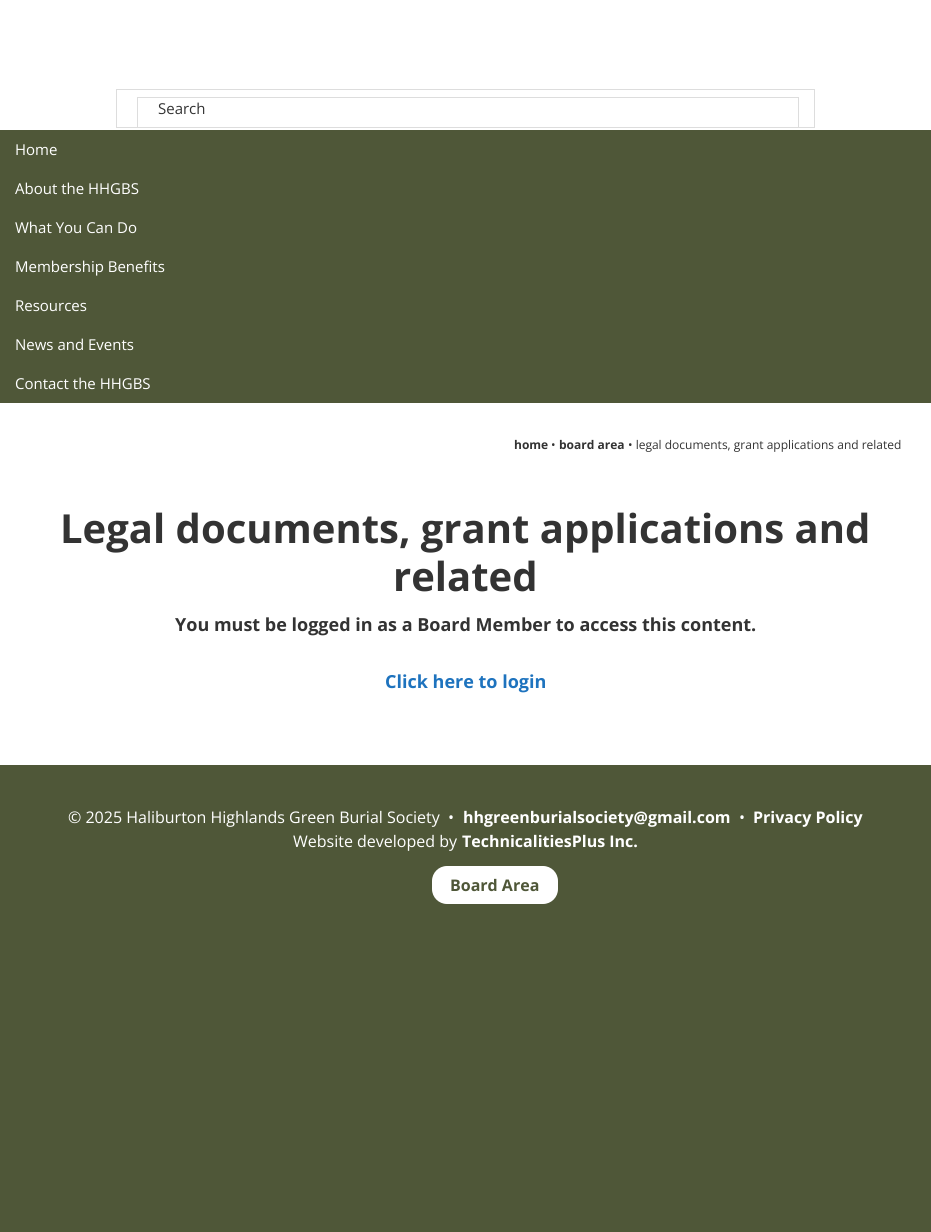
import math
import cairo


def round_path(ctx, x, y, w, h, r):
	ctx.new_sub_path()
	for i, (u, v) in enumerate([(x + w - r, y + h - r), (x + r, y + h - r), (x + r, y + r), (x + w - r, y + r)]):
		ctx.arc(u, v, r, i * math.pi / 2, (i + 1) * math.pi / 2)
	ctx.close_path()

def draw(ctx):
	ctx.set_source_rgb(1, 1, 1)
	ctx.paint()
	ctx.rectangle(116.5, 89.5, 698, 38)
	ctx.set_source_rgb(0.867, 0.867, 0.867)
	ctx.set_line_width(1)
	ctx.stroke()
	ctx.set_source_rgb(0.31, 0.341, 0.22)
	ctx.rectangle(0, 130, 931, 273)
	ctx.fill()
	ctx.save()
	ctx.rectangle(117, 90, 697, 37)
	ctx.clip()
	ctx.rectangle(137.5, 97.5, 661, 40)
	ctx.set_source_rgb(0.867, 0.867, 0.867)
	ctx.stroke()
	ctx.restore()
	ctx.select_font_face('Open Sans')
	ctx.set_font_size(15)
	ctx.set_source_rgb(0.2, 0.2, 0.2)
	ctx.move_to(158, 114)
	ctx.show_text('Search')
	ctx.set_source_rgb(1, 1, 1)
	for x, y, s in [
		(15, 155, 'Home'),
		(15, 194, 'About the HHGBS'),
		(15, 233, 'What You Can Do'),
		(15, 272, 'Membership Benefits'),
		(15, 311, 'Resources'),
		(15, 350, 'News and Events'),
		(15, 389, 'Contact the HHGBS'),
	]:
		ctx.move_to(x, y)
		ctx.show_text(s)
	ctx.select_font_face('Open Sans', cairo.FONT_SLANT_NORMAL, cairo.FONT_WEIGHT_BOLD)
	ctx.set_font_size(12)
	ctx.set_source_rgb(0.2, 0.2, 0.2)
	ctx.move_to(514, 449)
	ctx.show_text('home')
	ctx.select_font_face('Open Sans')
	ctx.move_to(551, 449)
	ctx.show_text('•')
	ctx.select_font_face('Open Sans', cairo.FONT_SLANT_NORMAL, cairo.FONT_WEIGHT_BOLD)
	ctx.move_to(559, 449)
	ctx.show_text('board area')
	ctx.select_font_face('Open Sans')
	ctx.move_to(628, 449)
	ctx.show_text('• legal documents, grant applications and related')
	ctx.select_font_face('Open Sans', cairo.FONT_SLANT_NORMAL, cairo.FONT_WEIGHT_BOLD)
	ctx.set_font_size(40)
	ctx.move_to(60, 543)
	ctx.show_text('Legal documents, grant applications and')
	ctx.move_to(393, 591)
	ctx.show_text('related')
	ctx.set_font_size(18)
	ctx.move_to(175, 631)
	ctx.show_text('You must be logged in as a Board Member to access this content.')
	ctx.set_source_rgb(0.118, 0.451, 0.745)
	ctx.move_to(385, 688)
	ctx.show_text('Click here to login')
	ctx.set_source_rgb(0.31, 0.341, 0.22)
	ctx.rectangle(0, 765, 931, 467)
	ctx.fill()
	ctx.select_font_face('Open Sans')
	ctx.set_font_size(16)
	ctx.set_source_rgb(1, 1, 1)
	ctx.move_to(68, 823)
	ctx.show_text('© 2025 Haliburton Highlands Green Burial Society  •')
	ctx.select_font_face('Open Sans', cairo.FONT_SLANT_NORMAL, cairo.FONT_WEIGHT_BOLD)
	ctx.move_to(463, 823)
	ctx.show_text('hhgreenburialsociety@gmail.com')
	ctx.select_font_face('Open Sans')
	ctx.move_to(739, 823)
	ctx.show_text('•')
	ctx.select_font_face('Open Sans', cairo.FONT_SLANT_NORMAL, cairo.FONT_WEIGHT_BOLD)
	ctx.move_to(753, 823)
	ctx.show_text('Privacy Policy')
	ctx.select_font_face('Open Sans')
	ctx.move_to(293, 847)
	ctx.show_text('Website developed by')
	ctx.select_font_face('Open Sans', cairo.FONT_SLANT_NORMAL, cairo.FONT_WEIGHT_BOLD)
	ctx.move_to(462, 847)
	ctx.show_text('TechnicalitiesPlus Inc.')
	round_path(ctx, 432, 866, 126, 38, 15)
	ctx.fill()
	ctx.set_source_rgb(0.31, 0.341, 0.22)
	ctx.move_to(450, 891)
	ctx.show_text('Board Area')


surface = cairo.ImageSurface(cairo.FORMAT_RGB24, 931, 1232)
ctx = cairo.Context(surface)
options = cairo.FontOptions()
options.set_hint_metrics(cairo.HINT_METRICS_OFF)
options.set_hint_style(cairo.HINT_STYLE_NONE)
ctx.set_font_options(options)
ctx.set_miter_limit(4)
draw(ctx)
surface.write_to_png('image.png')
